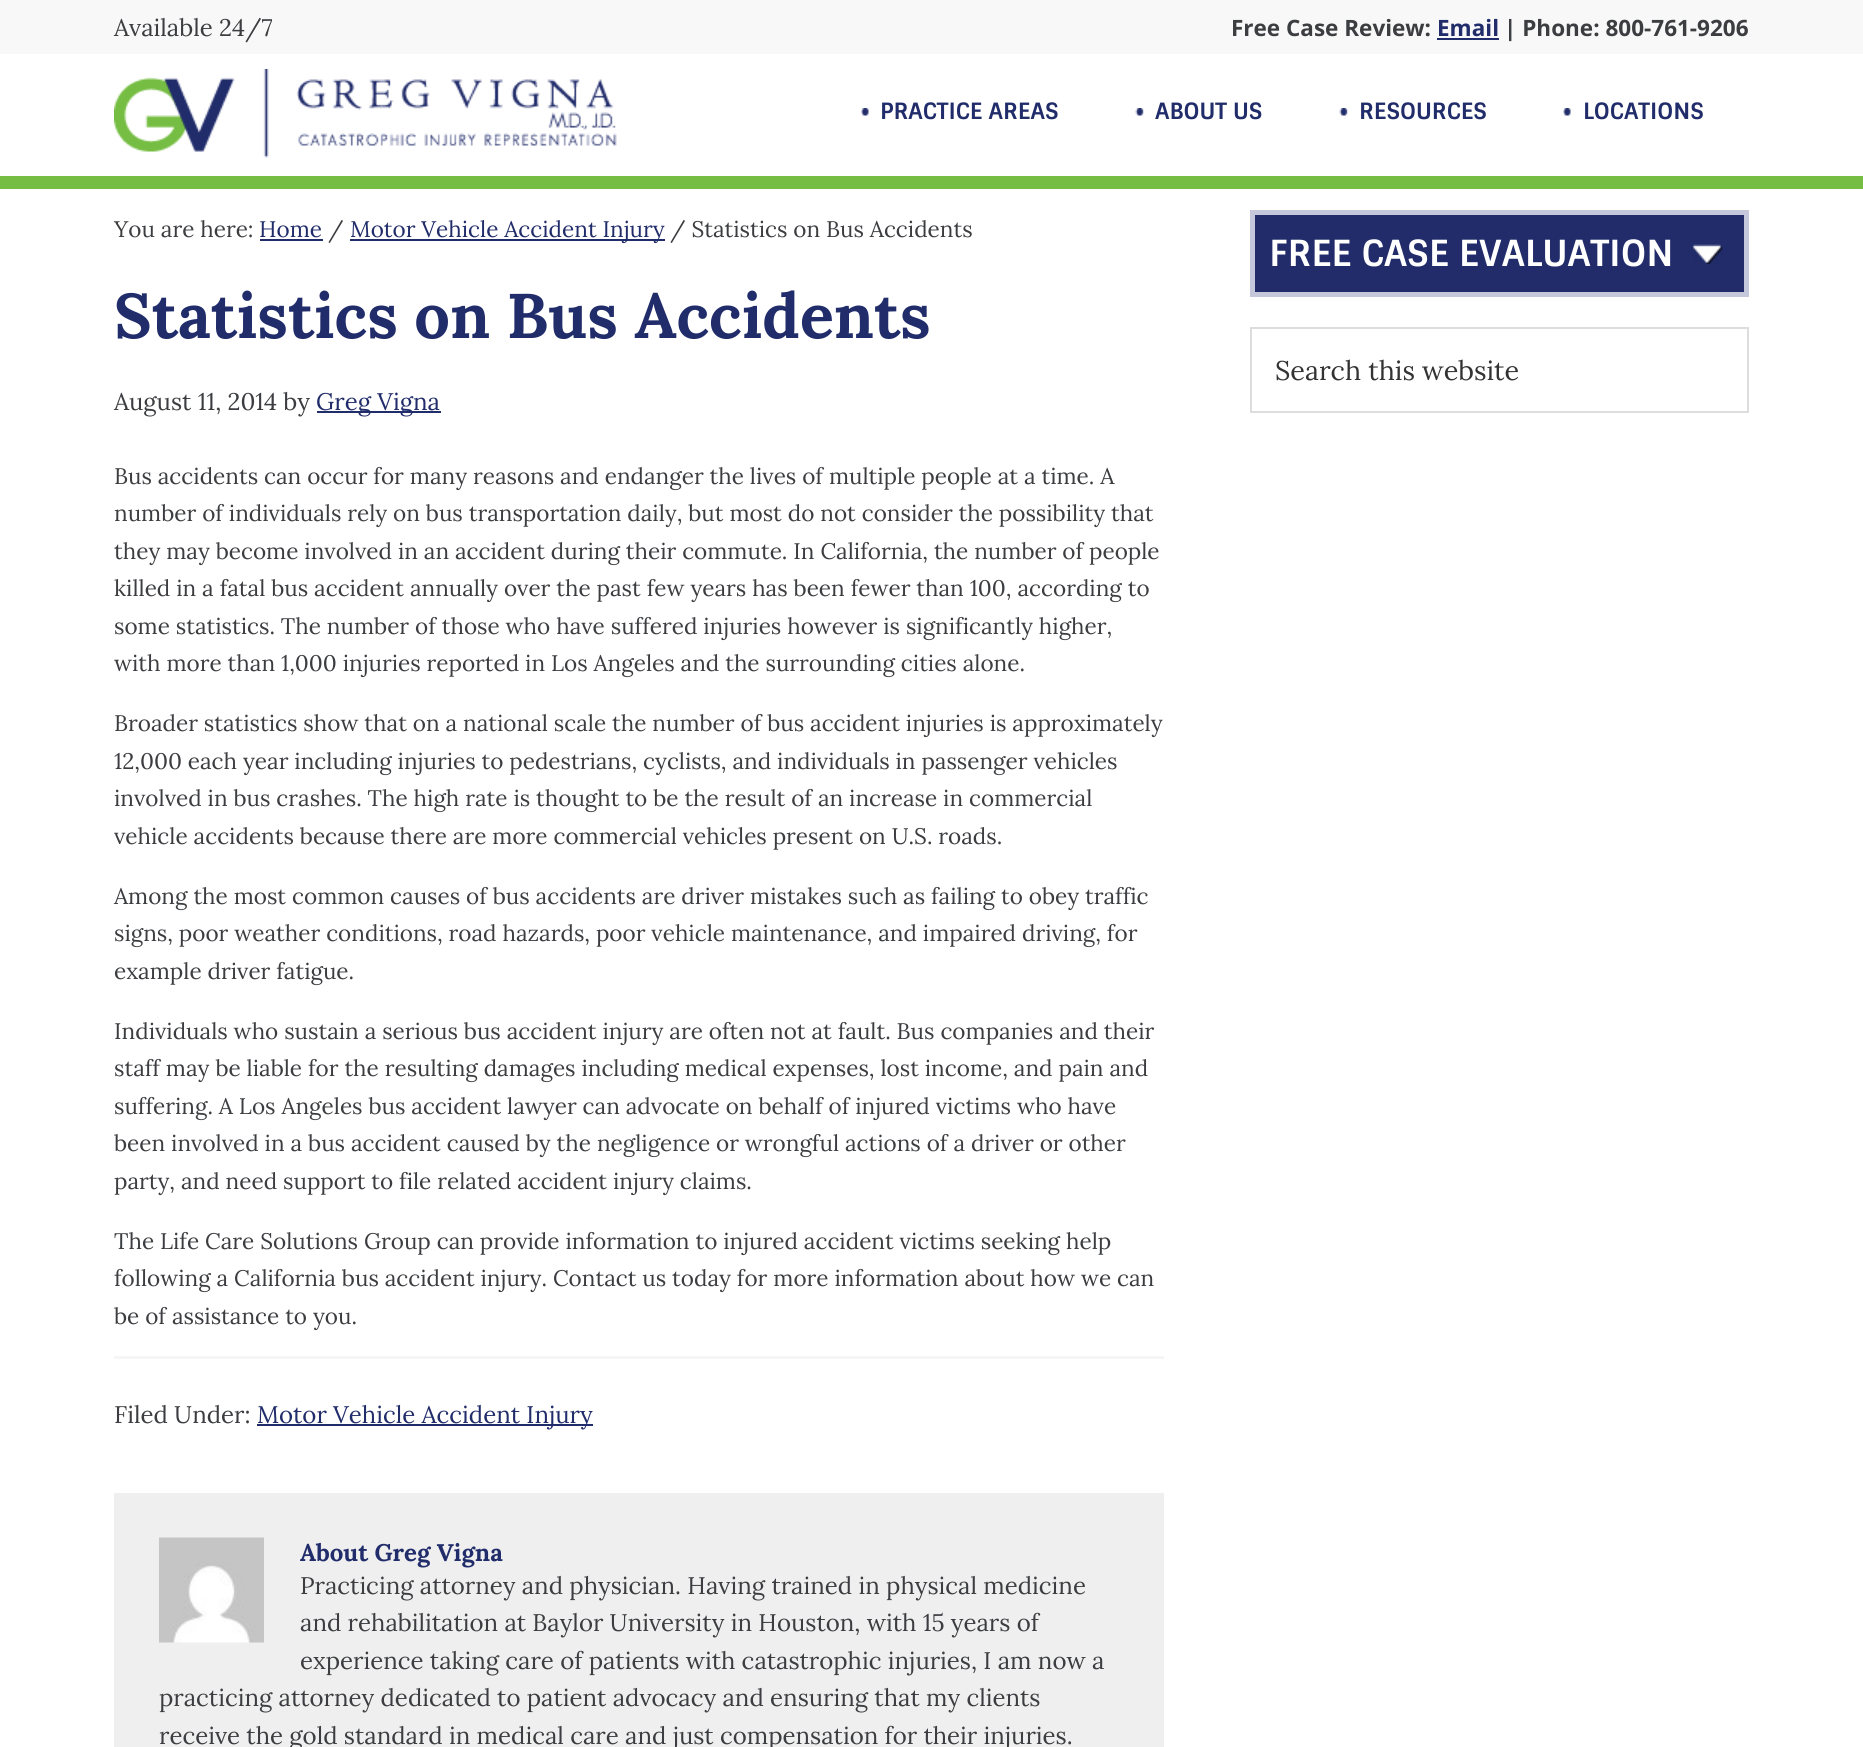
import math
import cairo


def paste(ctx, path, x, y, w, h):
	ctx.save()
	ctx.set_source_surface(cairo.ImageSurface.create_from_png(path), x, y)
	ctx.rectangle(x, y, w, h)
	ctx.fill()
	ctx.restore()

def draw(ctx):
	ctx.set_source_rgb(1, 1, 1)
	ctx.paint()
	ctx.set_source_rgb(0.969, 0.969, 0.969)
	ctx.rectangle(0, 0, 1863, 54)
	ctx.fill()
	ctx.select_font_face('Lora')
	ctx.set_font_size(24)
	ctx.set_source_rgb(0.235, 0.239, 0.251)
	ctx.move_to(114, 36)
	ctx.show_text('Available 24/7')
	ctx.select_font_face('Open Sans', cairo.FONT_SLANT_NORMAL, cairo.FONT_WEIGHT_BOLD)
	ctx.set_font_size(22.5)
	ctx.move_to(1231, 36)
	ctx.show_text('Free Case Review:')
	ctx.set_source_rgb(0.129, 0.173, 0.416)
	ctx.move_to(1437, 36)
	ctx.show_text('Email')
	ctx.rectangle(1437, 38, 62, 2)
	ctx.fill()
	ctx.set_source_rgb(0.235, 0.239, 0.251)
	ctx.move_to(1504, 36)
	ctx.show_text('| Phone: 800-761-9206')
	ctx.select_font_face('Lora')
	ctx.move_to(114, 237)
	ctx.show_text('You are here:')
	ctx.set_source_rgb(0.129, 0.173, 0.416)
	ctx.move_to(259, 237)
	ctx.show_text('Home')
	ctx.rectangle(260, 239, 63, 2)
	ctx.fill()
	ctx.set_source_rgb(0.235, 0.239, 0.251)
	ctx.move_to(328, 237)
	ctx.show_text('/')
	ctx.set_source_rgb(0.129, 0.173, 0.416)
	ctx.rectangle(350, 239, 315, 2)
	ctx.fill()
	ctx.move_to(350, 237)
	ctx.show_text('Motor Vehicle Accident Injury')
	ctx.set_source_rgb(0.235, 0.239, 0.251)
	ctx.move_to(670, 237)
	ctx.show_text('/ Statistics on Bus Accidents')
	ctx.select_font_face('Lora', cairo.FONT_SLANT_NORMAL, cairo.FONT_WEIGHT_BOLD)
	ctx.set_font_size(63)
	ctx.set_source_rgb(0.129, 0.173, 0.416)
	ctx.move_to(114, 338)
	ctx.show_text('Statistics on Bus Accidents')
	ctx.select_font_face('Lora')
	ctx.set_font_size(24)
	ctx.set_source_rgb(0.235, 0.239, 0.251)
	ctx.move_to(114, 410)
	ctx.show_text('August 11, 2014 by')
	ctx.set_source_rgb(0.129, 0.173, 0.416)
	ctx.rectangle(317, 411, 124, 2)
	ctx.fill()
	ctx.move_to(316, 410)
	ctx.show_text('Greg Vigna')
	ctx.set_font_size(22.5)
	ctx.set_source_rgb(0.235, 0.239, 0.251)
	for x, y, s in [
		(114, 484, 'Bus accidents can occur for many reasons and endanger the lives of multiple people at a time. A'),
		(114, 521, 'number of individuals rely on bus transportation daily, but most do not consider the possibility that'),
		(114, 559, 'they may become involved in an accident during their commute. In California, the number of people'),
		(114, 596, 'killed in a fatal bus accident annually over the past few years has been fewer than 100, according to'),
		(114, 634, 'some statistics. The number of those who have suffered injuries however is significantly higher,'),
		(114, 671, 'with more than 1,000 injuries reported in Los Angeles and the surrounding cities alone.'),
		(114, 731, 'Broader statistics show that on a national scale the number of bus accident injuries is approximately'),
		(114, 769, '12,000 each year including injuries to pedestrians, cyclists, and individuals in passenger vehicles'),
		(114, 806, 'involved in bus crashes. The high rate is thought to be the result of an increase in commercial'),
		(114, 844, 'vehicle accidents because there are more commercial vehicles present on U.S. roads.'),
		(114, 904, 'Among the most common causes of bus accidents are driver mistakes such as failing to obey traffic'),
		(114, 941, 'signs, poor weather conditions, road hazards, poor vehicle maintenance, and impaired driving, for'),
		(114, 979, 'example driver fatigue.'),
		(114, 1039, 'Individuals who sustain a serious bus accident injury are often not at fault. Bus companies and their'),
		(114, 1076, 'staff may be liable for the resulting damages including medical expenses, lost income, and pain and'),
		(114, 1114, 'suffering. A Los Angeles bus accident lawyer can advocate on behalf of injured victims who have'),
		(114, 1151, 'been involved in a bus accident caused by the negligence or wrongful actions of a driver or other'),
		(114, 1189, 'party, and need support to file related accident injury claims.'),
		(114, 1249, 'The Life Care Solutions Group can provide information to injured accident victims seeking help'),
		(114, 1286, 'following a California bus accident injury. Contact us today for more information about how we can'),
		(114, 1324, 'be of assistance to you.'),
	]:
		ctx.move_to(x, y)
		ctx.show_text(s)
	ctx.set_source_rgb(0.961, 0.961, 0.961)
	ctx.rectangle(114, 1356, 1050, 3)
	ctx.fill()
	ctx.set_font_size(24)
	ctx.set_source_rgb(0.235, 0.239, 0.251)
	ctx.move_to(114, 1423)
	ctx.show_text('Filed Under:')
	ctx.set_source_rgb(0.129, 0.173, 0.416)
	ctx.rectangle(257, 1424, 336, 2)
	ctx.fill()
	ctx.move_to(257, 1423)
	ctx.show_text('Motor Vehicle Accident Injury')
	ctx.set_source_rgb(0.937, 0.937, 0.937)
	ctx.rectangle(114, 1493, 1050, 254)
	ctx.fill()
	paste(ctx, 'media/1.png', 159, 1537, 105, 106)
	ctx.select_font_face('Lora', cairo.FONT_SLANT_NORMAL, cairo.FONT_WEIGHT_BOLD)
	ctx.set_source_rgb(0.129, 0.173, 0.416)
	ctx.move_to(300, 1561)
	ctx.show_text('About Greg Vigna')
	ctx.select_font_face('Lora')
	ctx.set_source_rgb(0.235, 0.239, 0.251)
	for x, y, s in [
		(300, 1594, 'Practicing attorney and physician. Having trained in physical medicine'),
		(300, 1631, 'and rehabilitation at Baylor University in Houston, with 15 years of'),
		(300, 1669, 'experience taking care of patients with catastrophic injuries, I am now a'),
		(159, 1706, 'practicing attorney dedicated to patient advocacy and ensuring that my clients'),
		(159, 1744, 'receive the gold standard in medical care and just compensation for their injuries.'),
	]:
		ctx.move_to(x, y)
		ctx.show_text(s)
	ctx.set_source_rgb(0.133, 0.173, 0.416)
	ctx.rectangle(1255, 215, 489, 77)
	ctx.fill()
	paste(ctx, 'media/2.png', 1692, 244, 31, 20)
	ctx.rectangle(1252.5, 212.5, 494, 82)
	ctx.set_source_rgb(0.773, 0.784, 0.859)
	ctx.set_line_width(5)
	ctx.stroke()
	ctx.select_font_face('Sintony', cairo.FONT_SLANT_NORMAL, cairo.FONT_WEIGHT_BOLD)
	ctx.set_font_size(36)
	ctx.set_source_rgb(1, 1, 1)
	ctx.move_to(1269, 266)
	ctx.show_text('FREE CASE EVALUATION')
	ctx.rectangle(1251, 328, 497, 84)
	ctx.set_source_rgb(0.867, 0.867, 0.867)
	ctx.set_line_width(2)
	ctx.stroke()
	ctx.select_font_face('Lora')
	ctx.set_font_size(27)
	ctx.set_source_rgb(0.2, 0.2, 0.2)
	ctx.move_to(1275, 380)
	ctx.show_text('Search this website')
	ctx.set_source_rgb(0.463, 0.745, 0.263)
	ctx.rectangle(0, 176, 1863, 13)
	ctx.fill()
	paste(ctx, 'media/3.png', 114, 69, 503, 89)
	paste(ctx, 'media/4.png', 861, 108, 8, 8)
	ctx.select_font_face('Sintony', cairo.FONT_SLANT_NORMAL, cairo.FONT_WEIGHT_BOLD)
	ctx.set_font_size(22.5)
	ctx.set_source_rgb(0.129, 0.173, 0.416)
	ctx.move_to(880, 119)
	ctx.show_text('PRACTICE AREAS')
	paste(ctx, 'media/5.png', 1135, 108, 9, 8)
	ctx.move_to(1155, 119)
	ctx.show_text('ABOUT US')
	paste(ctx, 'media/5.png', 1339, 108, 9, 8)
	ctx.move_to(1359, 119)
	ctx.show_text('RESOURCES')
	paste(ctx, 'media/4.png', 1563, 108, 8, 8)
	ctx.move_to(1583, 119)
	ctx.show_text('LOCATIONS')


surface = cairo.ImageSurface(cairo.FORMAT_RGB24, 1863, 1747)
ctx = cairo.Context(surface)
options = cairo.FontOptions()
options.set_hint_metrics(cairo.HINT_METRICS_OFF)
options.set_hint_style(cairo.HINT_STYLE_NONE)
ctx.set_font_options(options)
ctx.set_miter_limit(4)
draw(ctx)
surface.write_to_png('image.png')
